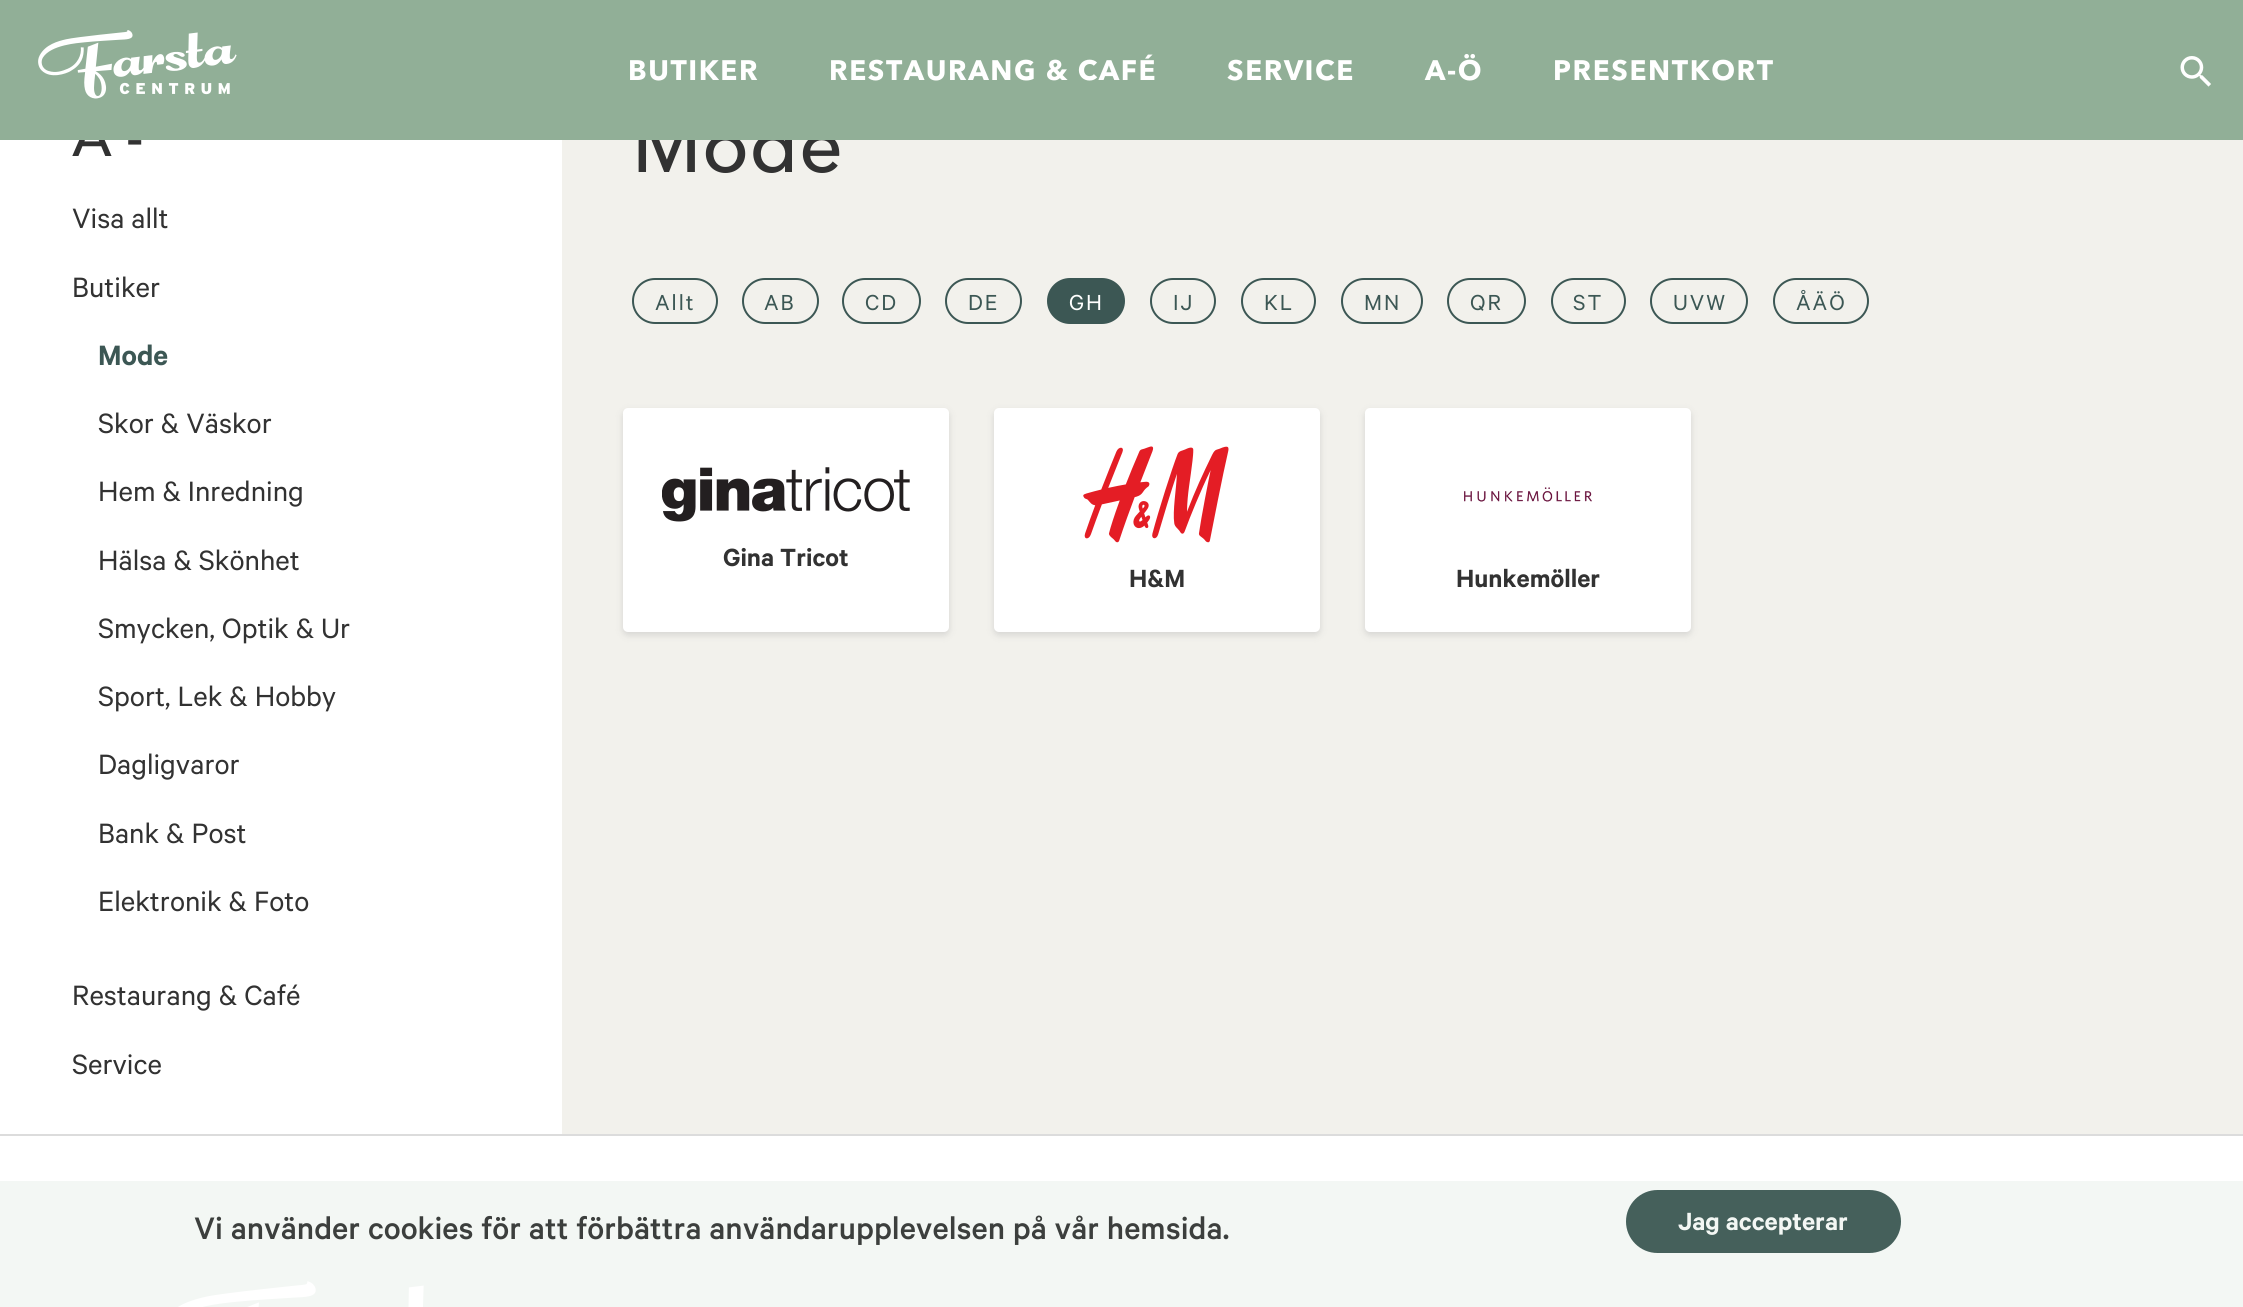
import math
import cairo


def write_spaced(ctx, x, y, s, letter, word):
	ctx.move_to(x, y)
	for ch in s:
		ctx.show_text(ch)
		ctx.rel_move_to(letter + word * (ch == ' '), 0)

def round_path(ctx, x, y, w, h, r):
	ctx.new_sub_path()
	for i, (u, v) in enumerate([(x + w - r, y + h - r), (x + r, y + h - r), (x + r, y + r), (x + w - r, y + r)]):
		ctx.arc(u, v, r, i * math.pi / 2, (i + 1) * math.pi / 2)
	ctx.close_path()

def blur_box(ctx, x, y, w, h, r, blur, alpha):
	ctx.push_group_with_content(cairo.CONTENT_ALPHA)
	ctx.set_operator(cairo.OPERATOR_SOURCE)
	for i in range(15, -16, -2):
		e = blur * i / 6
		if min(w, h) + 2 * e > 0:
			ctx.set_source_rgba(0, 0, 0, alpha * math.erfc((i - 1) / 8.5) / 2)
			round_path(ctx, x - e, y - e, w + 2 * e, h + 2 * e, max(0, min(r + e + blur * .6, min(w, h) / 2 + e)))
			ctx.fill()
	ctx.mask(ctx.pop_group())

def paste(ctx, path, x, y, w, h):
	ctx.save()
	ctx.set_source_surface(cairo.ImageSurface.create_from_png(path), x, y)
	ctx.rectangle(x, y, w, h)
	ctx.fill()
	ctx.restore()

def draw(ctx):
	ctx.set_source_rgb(1, 1, 1)
	ctx.paint()
	ctx.select_font_face('Avenir Next Medium')
	ctx.set_font_size(56)
	ctx.set_source_rgb(0.196, 0.196, 0.196)
	ctx.move_to(72, 156)
	ctx.show_text('A -')
	ctx.set_source_rgb(0.949, 0.945, 0.925)
	ctx.rectangle(562, 140, 1681, 994)
	ctx.fill()
	ctx.set_font_size(77)
	ctx.set_source_rgb(0.196, 0.196, 0.196)
	write_spaced(ctx, 632, 172, 'Mode', 0.5, 0)
	ctx.set_source_rgb(0.569, 0.686, 0.592)
	ctx.rectangle(0, 0, 2243, 140)
	ctx.fill()
	paste(ctx, 'media/1.png', 38, 30, 199, 69)
	ctx.select_font_face('Avenir Next', cairo.FONT_SLANT_NORMAL, cairo.FONT_WEIGHT_BOLD)
	ctx.set_font_size(28)
	ctx.set_source_rgb(1, 1, 1)
	for x, y, s in [
		(628, 80, 'BUTIKER'),
		(829, 80, 'RESTAURANG & CAFÉ'),
		(1227, 80, 'SERVICE'),
		(1425, 80, 'A-Ö'),
		(1553, 80, 'PRESENTKORT'),
	]:
		write_spaced(ctx, x, y, s, 1.6, 0)
	paste(ctx, 'media/2.png', 2180, 56, 31, 31)
	ctx.select_font_face('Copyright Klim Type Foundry')
	ctx.set_font_size(31.5)
	ctx.set_source_rgb(0.196, 0.196, 0.196)
	ctx.move_to(72, 228)
	ctx.show_text('Visa allt')
	ctx.move_to(72, 297)
	ctx.show_text('Butiker')
	ctx.select_font_face('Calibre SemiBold')
	ctx.set_source_rgb(0.235, 0.341, 0.329)
	ctx.move_to(98, 365)
	ctx.show_text('Mode')
	ctx.select_font_face('Copyright Klim Type Foundry')
	ctx.set_source_rgb(0.196, 0.196, 0.196)
	for x, y, s in [
		(98, 433, 'Skor & Väskor'),
		(98, 501, 'Hem & Inredning'),
		(98, 570, 'Hälsa & Skönhet'),
		(98, 638, 'Smycken, Optik & Ur'),
		(98, 706, 'Sport, Lek & Hobby'),
		(98, 774, 'Dagligvaror'),
		(98, 843, 'Bank & Post'),
		(98, 911, 'Elektronik & Foto'),
		(72, 1005, 'Restaurang & Café'),
		(72, 1074, 'Service'),
	]:
		ctx.move_to(x, y)
		ctx.show_text(s)
	round_path(ctx, 633, 279, 84, 44, 22)
	ctx.set_source_rgb(0.235, 0.341, 0.329)
	ctx.stroke()
	ctx.set_font_size(24.5)
	write_spaced(ctx, 655, 310, 'Allt', 2, 0)
	round_path(ctx, 743, 279, 75, 44, 22)
	ctx.stroke()
	write_spaced(ctx, 764, 310, 'AB', 2, 0)
	round_path(ctx, 843, 279, 77, 44, 22)
	ctx.stroke()
	write_spaced(ctx, 865, 310, 'CD', 2, 0)
	round_path(ctx, 946, 279, 75, 44, 22)
	ctx.stroke()
	write_spaced(ctx, 968, 310, 'DE', 2, 0)
	round_path(ctx, 1048, 279, 76, 44, 22)
	ctx.fill_preserve()
	ctx.stroke()
	ctx.set_source_rgb(1, 1, 1)
	write_spaced(ctx, 1069, 310, 'GH', 2, 0)
	round_path(ctx, 1151, 279, 64, 44, 22)
	ctx.set_source_rgb(0.235, 0.341, 0.329)
	ctx.stroke()
	write_spaced(ctx, 1173, 310, 'IJ', 2, 0)
	round_path(ctx, 1242, 279, 73, 44, 22)
	ctx.stroke()
	write_spaced(ctx, 1264, 310, 'KL', 2, 0)
	round_path(ctx, 1342, 279, 80, 44, 22)
	ctx.stroke()
	write_spaced(ctx, 1364, 310, 'MN', 2, 0)
	round_path(ctx, 1448, 279, 77, 44, 22)
	ctx.stroke()
	write_spaced(ctx, 1470, 310, 'QR', 2, 0)
	round_path(ctx, 1552, 279, 73, 44, 22)
	ctx.stroke()
	write_spaced(ctx, 1573, 310, 'ST', 2, 0)
	round_path(ctx, 1651, 279, 96, 44, 22)
	ctx.stroke()
	write_spaced(ctx, 1673, 310, 'UVW', 2, 0)
	round_path(ctx, 1774, 279, 94, 44, 22)
	ctx.stroke()
	write_spaced(ctx, 1796, 310, 'ÅÄÖ', 2, 0)
	ctx.set_source_rgb(0.725, 0.725, 0.725)
	blur_box(ctx, 623, 411, 326, 224, 5, 3.5, 0.5)
	ctx.set_source_rgb(1, 1, 1)
	round_path(ctx, 623, 408, 326, 224, 5)
	ctx.fill()
	paste(ctx, 'media/3.png', 662, 467, 248, 55)
	ctx.select_font_face('Calibre SemiBold')
	ctx.set_font_size(28)
	ctx.set_source_rgb(0.196, 0.196, 0.196)
	ctx.move_to(723, 566)
	ctx.show_text('Gina Tricot')
	ctx.set_source_rgb(0.725, 0.725, 0.725)
	blur_box(ctx, 994, 411, 326, 224, 5, 3.5, 0.5)
	ctx.set_source_rgb(1, 1, 1)
	round_path(ctx, 994, 408, 326, 224, 5)
	ctx.fill()
	paste(ctx, 'media/4.png', 1083, 446, 146, 97)
	ctx.set_source_rgb(0.196, 0.196, 0.196)
	ctx.move_to(1129, 587)
	ctx.show_text('H&M')
	ctx.set_source_rgb(0.725, 0.725, 0.725)
	blur_box(ctx, 1365, 411, 326, 224, 5, 3.5, 0.5)
	ctx.set_source_rgb(1, 1, 1)
	round_path(ctx, 1365, 408, 326, 224, 5)
	ctx.fill()
	paste(ctx, 'media/5.png', 1464, 487, 128, 15)
	ctx.set_source_rgb(0.196, 0.196, 0.196)
	ctx.move_to(1456, 587)
	ctx.show_text('Hunkemöller')
	ctx.set_source_rgb(0.953, 0.965, 0.957)
	ctx.rectangle(0, 1181, 2243, 126)
	ctx.fill()
	paste(ctx, 'media/6.png', 178, 1281, 246, 26)
	ctx.set_source_rgb(0.863, 0.863, 0.863)
	ctx.rectangle(0, 1134, 2243, 2)
	ctx.fill()
	ctx.select_font_face('Calibre Medium')
	ctx.set_font_size(35)
	ctx.set_source_rgb(0.235, 0.247, 0.239)
	ctx.move_to(194, 1239)
	ctx.show_text('Vi använder cookies för att förbättra användarupplevelsen på vår hemsida.')
	ctx.set_source_rgb(0.271, 0.376, 0.357)
	round_path(ctx, 1626, 1190, 275, 63, 31.5)
	ctx.fill()
	ctx.select_font_face('Calibre SemiBold')
	ctx.set_font_size(28)
	ctx.set_source_rgb(0.953, 0.965, 0.957)
	ctx.move_to(1678, 1230)
	ctx.show_text('Jag accepterar')


surface = cairo.ImageSurface(cairo.FORMAT_RGB24, 2243, 1307)
ctx = cairo.Context(surface)
options = cairo.FontOptions()
options.set_hint_metrics(cairo.HINT_METRICS_OFF)
options.set_hint_style(cairo.HINT_STYLE_NONE)
ctx.set_font_options(options)
ctx.set_miter_limit(4)
draw(ctx)
surface.write_to_png('image.png')
